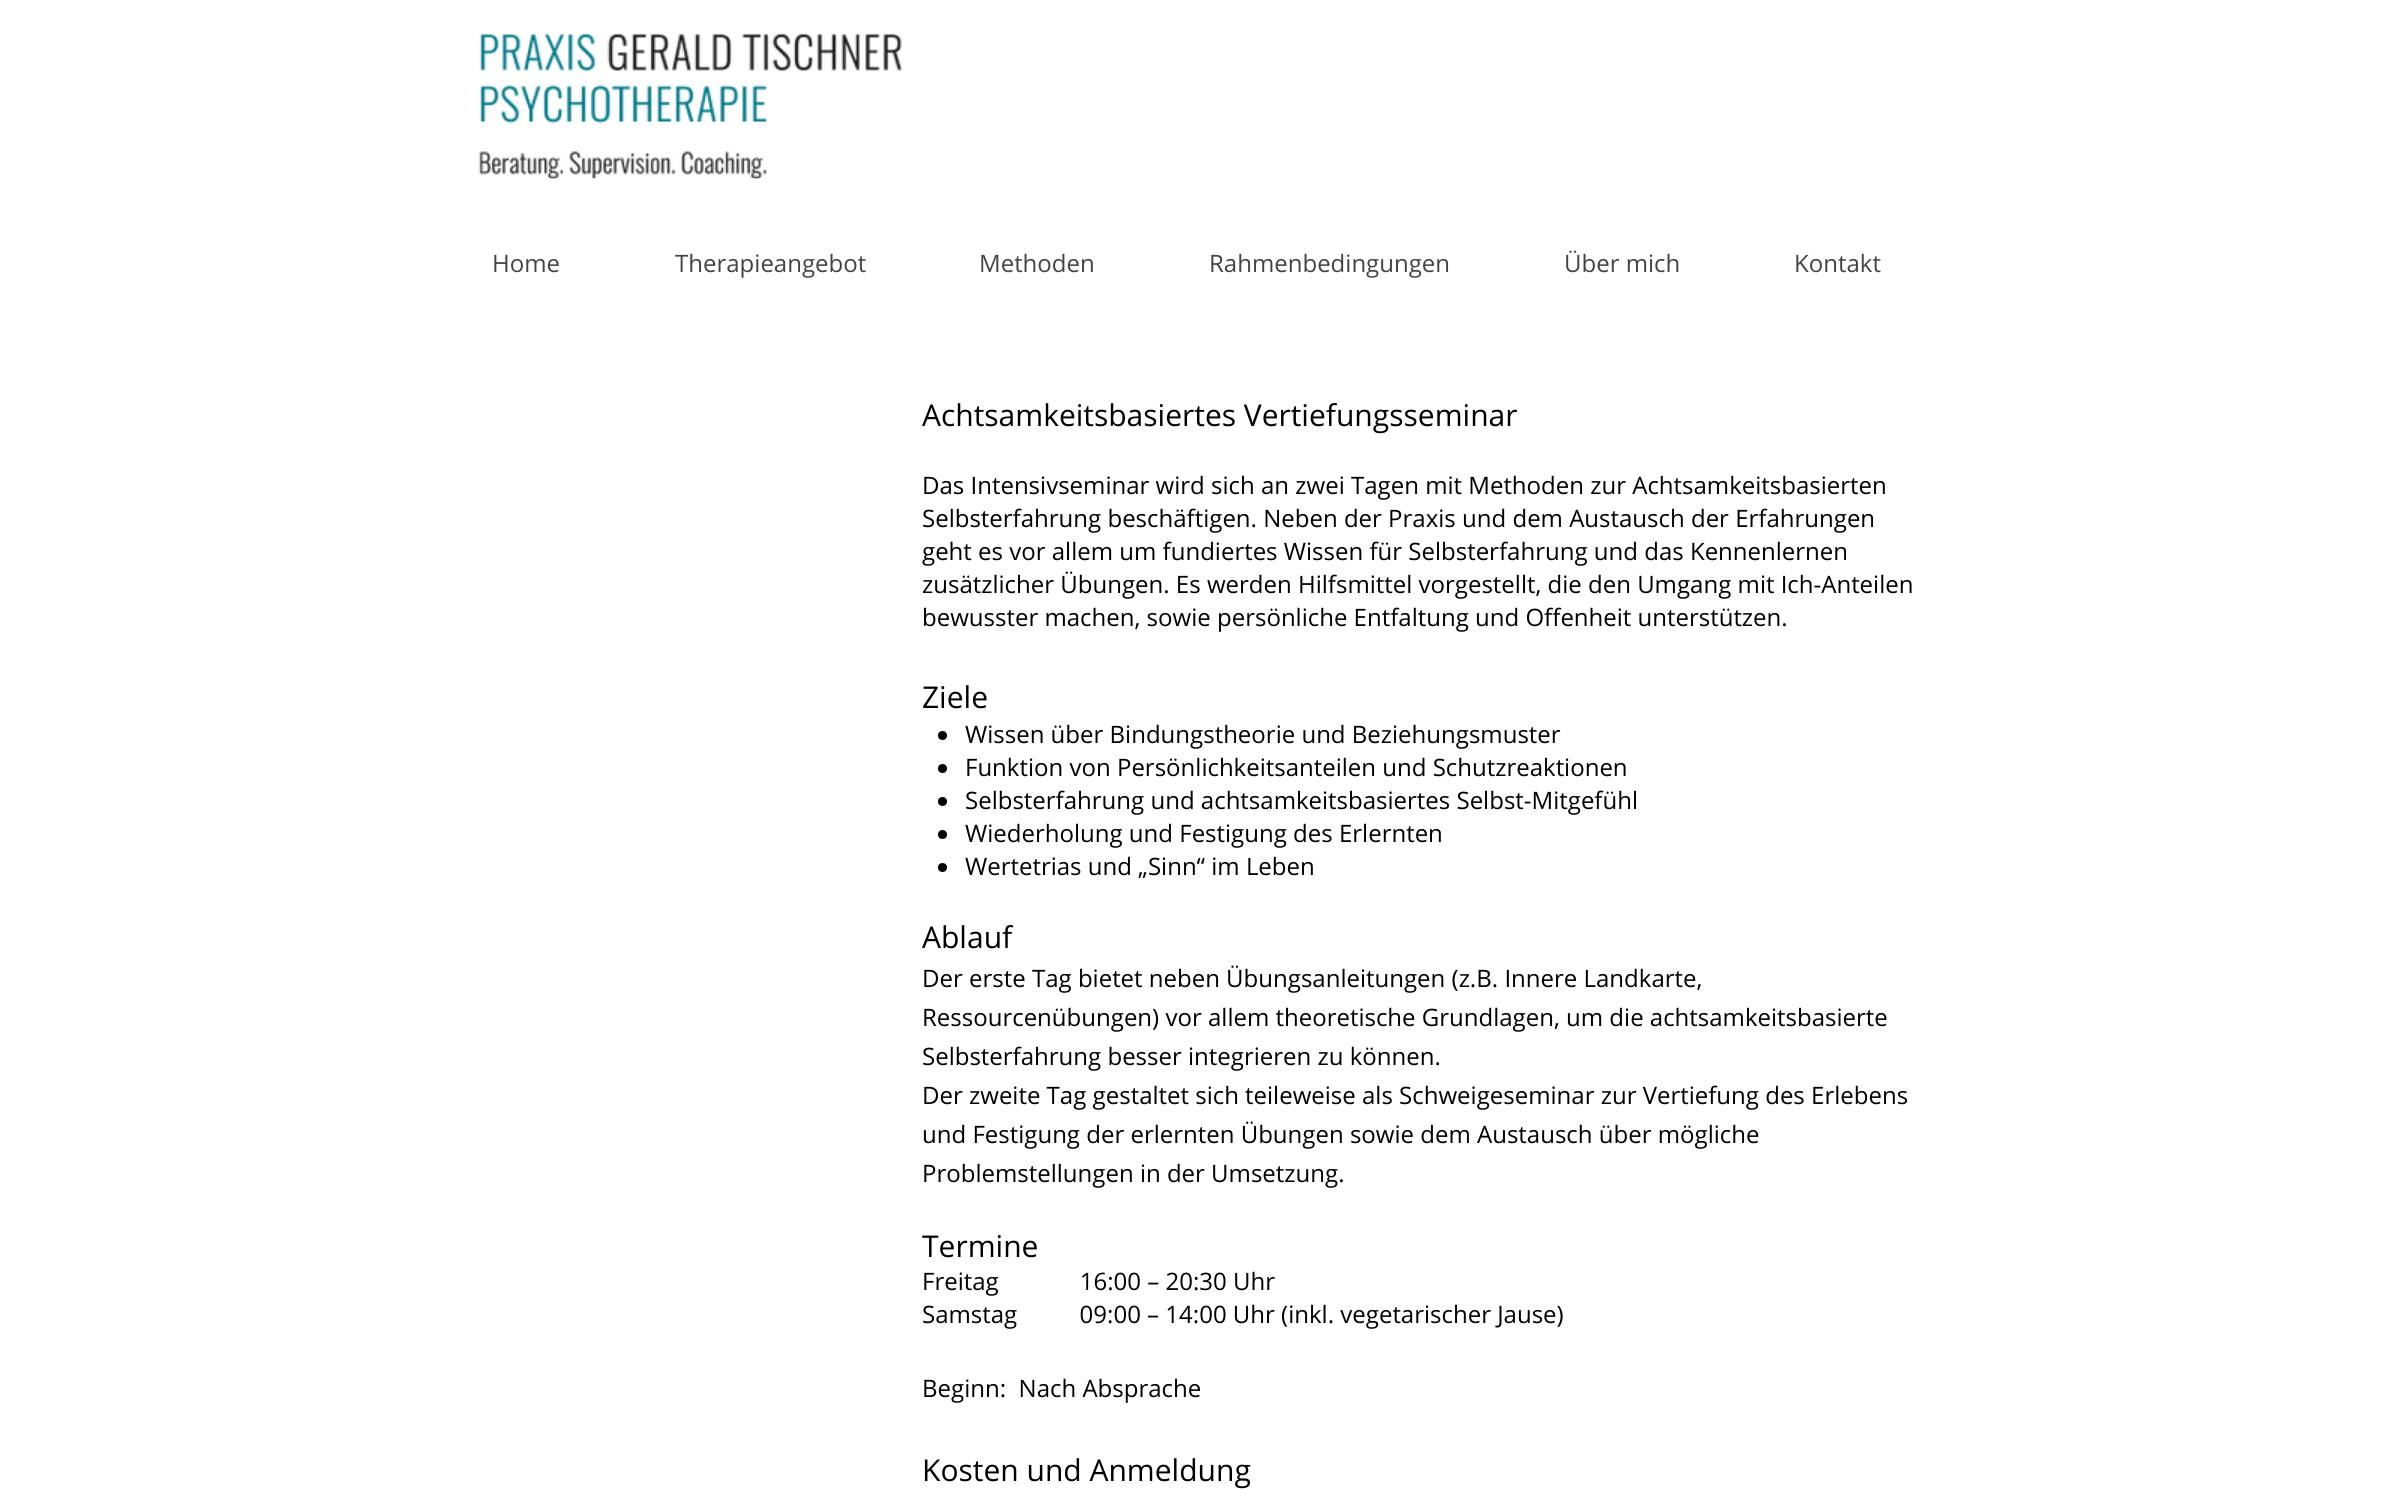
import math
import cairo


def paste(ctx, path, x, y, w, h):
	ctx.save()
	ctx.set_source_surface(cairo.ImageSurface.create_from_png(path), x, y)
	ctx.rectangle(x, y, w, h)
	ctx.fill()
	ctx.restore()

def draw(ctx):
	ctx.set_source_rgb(1, 1, 1)
	ctx.paint()
	paste(ctx, 'media/1.png', 478, 33, 424, 146)
	ctx.select_font_face('Open Sans')
	ctx.set_font_size(24)
	ctx.set_source_rgb(0.267, 0.267, 0.267)
	for x, y, s in [
		(492, 272, 'Home'),
		(675, 272, 'Therapieangebot'),
		(979, 272, 'Methoden'),
		(1209, 272, 'Rahmenbedingungen'),
		(1564, 272, 'Über mich'),
		(1794, 272, 'Kontakt'),
	]:
		ctx.move_to(x, y)
		ctx.show_text(s)
	ctx.set_font_size(30)
	ctx.set_source_rgb(0, 0, 0)
	ctx.move_to(922, 426)
	ctx.show_text('Achtsamkeitsbasiertes Vertiefungsseminar')
	ctx.set_font_size(24)
	for x, y, s in [
		(922, 494, 'Das Intensivseminar wird sich an zwei Tagen mit Methoden zur Achtsamkeitsbasierten'),
		(922, 527, 'Selbsterfahrung beschäftigen. Neben der Praxis und dem Austausch der Erfahrungen'),
		(922, 560, 'geht es vor allem um fundiertes Wissen für Selbsterfahrung und das Kennenlernen'),
		(922, 593, 'zusätzlicher Übungen. Es werden Hilfsmittel vorgestellt, die den Umgang mit Ich-Anteilen'),
		(922, 626, 'bewusster machen, sowie persönliche Entfaltung und Offenheit unterstützen.'),
	]:
		ctx.move_to(x, y)
		ctx.show_text(s)
	ctx.set_font_size(30)
	ctx.move_to(922, 708)
	ctx.show_text('Ziele')
	ctx.new_path()
	ctx.arc(942.5, 735.5, 4.5, 0, 2 * math.pi)
	ctx.fill()
	ctx.set_font_size(24)
	ctx.move_to(965, 743)
	ctx.show_text('Wissen über Bindungstheorie und Beziehungsmuster')
	ctx.new_path()
	ctx.arc(942.5, 768.5, 4.5, 0, 2 * math.pi)
	ctx.fill()
	ctx.move_to(965, 776)
	ctx.show_text('Funktion von Persönlichkeitsanteilen und Schutzreaktionen')
	ctx.new_path()
	ctx.arc(942.5, 801.5, 4.5, 0, 2 * math.pi)
	ctx.fill()
	ctx.move_to(965, 809)
	ctx.show_text('Selbsterfahrung und achtsamkeitsbasiertes Selbst-Mitgefühl')
	ctx.new_path()
	ctx.arc(942.5, 834.5, 4.5, 0, 2 * math.pi)
	ctx.fill()
	ctx.move_to(965, 842)
	ctx.show_text('Wiederholung und Festigung des Erlernten')
	ctx.new_path()
	ctx.arc(942.5, 867.5, 4.5, 0, 2 * math.pi)
	ctx.fill()
	ctx.move_to(965, 875)
	ctx.show_text('Wertetrias und „Sinn“ im Leben')
	ctx.set_font_size(30)
	ctx.move_to(922, 948)
	ctx.show_text('Ablauf')
	ctx.set_font_size(24)
	for x, y, s in [
		(922, 987, 'Der erste Tag bietet neben Übungsanleitungen (z.B. Innere Landkarte,'),
		(922, 1026, 'Ressourcenübungen) vor allem theoretische Grundlagen, um die achtsamkeitsbasierte'),
		(922, 1065, 'Selbsterfahrung besser integrieren zu können.'),
		(922, 1104, 'Der zweite Tag gestaltet sich teileweise als Schweigeseminar zur Vertiefung des Erlebens'),
		(922, 1143, 'und Festigung der erlernten Übungen sowie dem Austausch über mögliche'),
		(922, 1182, 'Problemstellungen in der Umsetzung.'),
	]:
		ctx.move_to(x, y)
		ctx.show_text(s)
	ctx.set_font_size(30)
	ctx.move_to(922, 1257)
	ctx.show_text('Termine')
	ctx.set_font_size(24)
	for x, y, s in [
		(922, 1290, 'Freitag             16:00 – 20:30 Uhr'),
		(922, 1323, 'Samstag          09:00 – 14:00 Uhr (inkl. vegetarischer Jause)'),
		(922, 1397, 'Beginn:  Nach Absprache'),
	]:
		ctx.move_to(x, y)
		ctx.show_text(s)
	ctx.set_font_size(30)
	ctx.move_to(922, 1481)
	ctx.show_text('Kosten und Anmeldung')


surface = cairo.ImageSurface(cairo.FORMAT_RGB24, 2395, 1494)
ctx = cairo.Context(surface)
options = cairo.FontOptions()
options.set_hint_metrics(cairo.HINT_METRICS_OFF)
options.set_hint_style(cairo.HINT_STYLE_NONE)
ctx.set_font_options(options)
ctx.set_miter_limit(4)
draw(ctx)
surface.write_to_png('image.png')
